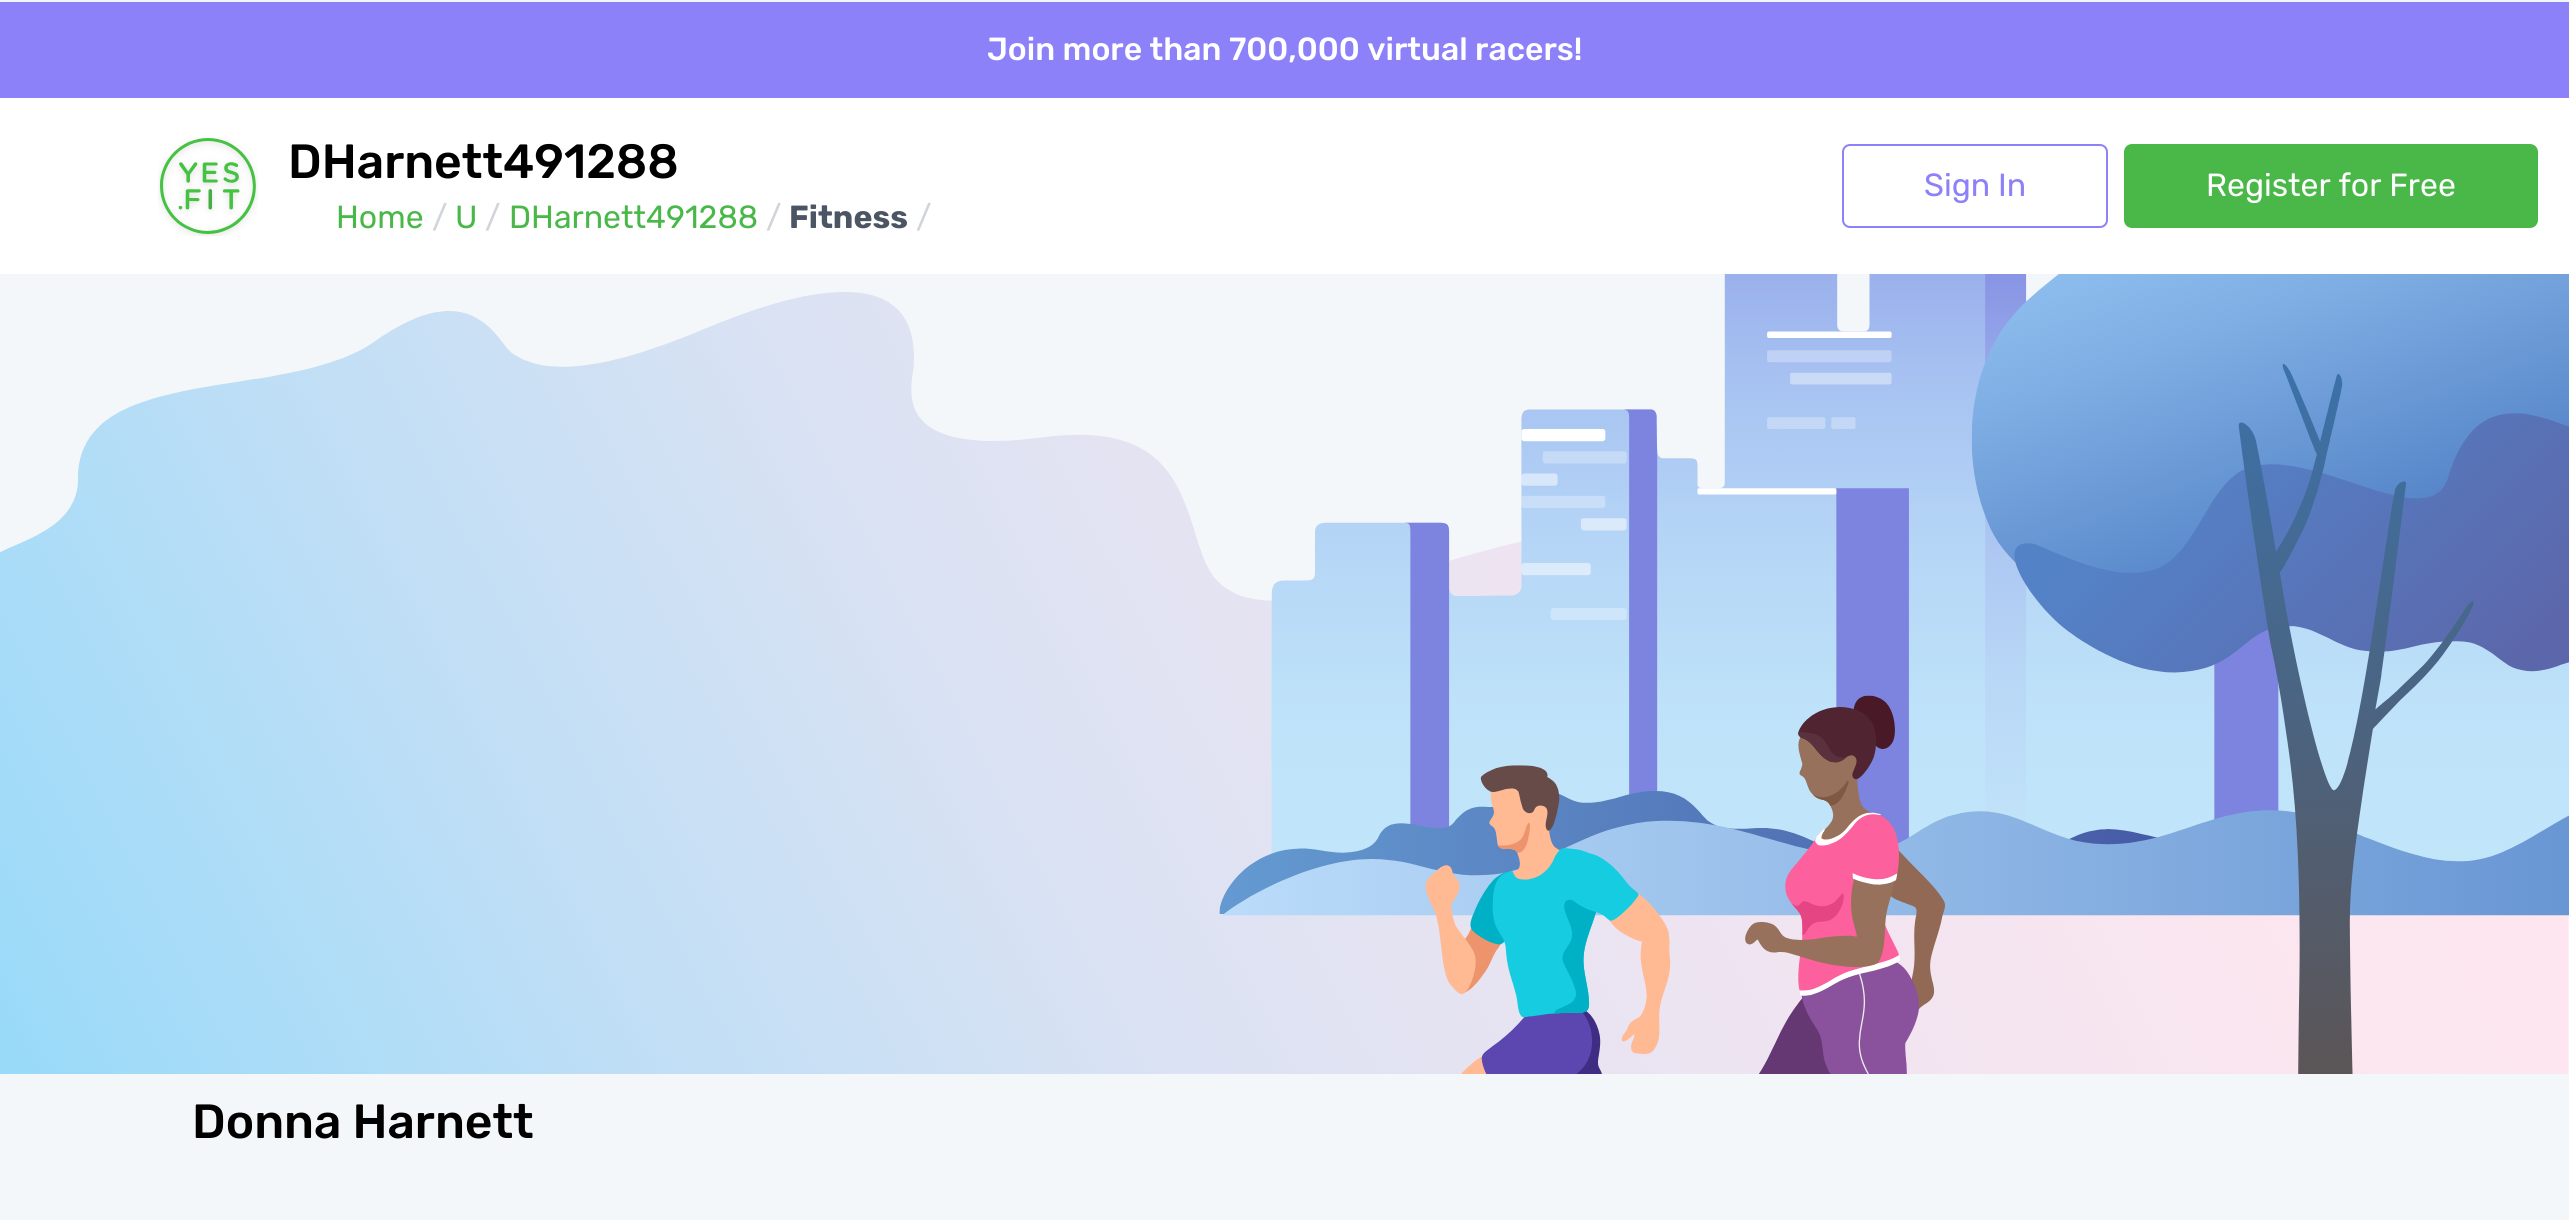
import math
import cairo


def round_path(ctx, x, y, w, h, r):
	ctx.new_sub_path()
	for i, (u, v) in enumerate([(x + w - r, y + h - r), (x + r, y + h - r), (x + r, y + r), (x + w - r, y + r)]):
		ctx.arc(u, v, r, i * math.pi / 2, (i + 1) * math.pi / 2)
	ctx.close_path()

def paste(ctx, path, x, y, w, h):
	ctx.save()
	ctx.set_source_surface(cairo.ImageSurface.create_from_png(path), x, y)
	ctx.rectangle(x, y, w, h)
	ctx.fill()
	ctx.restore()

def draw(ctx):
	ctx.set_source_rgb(0.957, 0.965, 0.973)
	ctx.paint()
	ctx.set_source_rgb(0.549, 0.506, 0.973)
	ctx.rectangle(0, 2, 2569, 96)
	ctx.fill()
	ctx.select_font_face('Rubik Medium')
	ctx.set_font_size(32)
	ctx.set_source_rgb(1, 1, 1)
	ctx.move_to(987, 60)
	ctx.show_text('Join more than 700,000 virtual racers!')
	ctx.rectangle(0, 98, 2569, 176)
	ctx.fill()
	paste(ctx, 'media/1.png', 158, 137, 100, 99)
	ctx.set_font_size(48)
	ctx.set_source_rgb(0, 0, 0)
	ctx.move_to(288, 178)
	ctx.show_text('DHarnett491288')
	ctx.select_font_face('Rubik')
	ctx.set_font_size(32)
	ctx.set_source_rgb(0.286, 0.722, 0.282)
	ctx.move_to(336, 228)
	ctx.show_text('Home')
	ctx.set_source_rgb(0.82, 0.835, 0.859)
	ctx.move_to(432, 228)
	ctx.show_text('/')
	ctx.set_source_rgb(0.286, 0.722, 0.282)
	ctx.move_to(455, 228)
	ctx.show_text('U')
	ctx.set_source_rgb(0.82, 0.835, 0.859)
	ctx.move_to(485, 228)
	ctx.show_text('/')
	ctx.set_source_rgb(0.286, 0.722, 0.282)
	ctx.move_to(509, 228)
	ctx.show_text('DHarnett491288')
	ctx.set_source_rgb(0.82, 0.835, 0.859)
	ctx.move_to(766, 228)
	ctx.show_text('/')
	ctx.select_font_face('Rubik', cairo.FONT_SLANT_NORMAL, cairo.FONT_WEIGHT_BOLD)
	ctx.set_source_rgb(0.294, 0.333, 0.388)
	ctx.move_to(789, 228)
	ctx.show_text('Fitness')
	ctx.select_font_face('Rubik')
	ctx.set_source_rgb(0.82, 0.835, 0.859)
	ctx.move_to(916, 228)
	ctx.show_text('/')
	round_path(ctx, 1843, 145, 264, 82, 7)
	ctx.set_source_rgb(0.549, 0.506, 0.973)
	ctx.stroke()
	ctx.move_to(1924, 196)
	ctx.show_text('Sign In')
	ctx.set_source_rgb(0.286, 0.722, 0.282)
	round_path(ctx, 2125, 145, 412, 82, 7)
	ctx.fill_preserve()
	ctx.stroke()
	ctx.set_source_rgb(1, 1, 1)
	ctx.move_to(2206, 196)
	ctx.show_text('Register for Free')
	paste(ctx, 'media/2.png', 0, 274, 2569, 800)
	ctx.select_font_face('Rubik Medium')
	ctx.set_font_size(48)
	ctx.set_source_rgb(0, 0, 0)
	ctx.move_to(192, 1138)
	ctx.show_text('Donna Harnett')


surface = cairo.ImageSurface(cairo.FORMAT_RGB24, 2569, 1220)
ctx = cairo.Context(surface)
options = cairo.FontOptions()
options.set_hint_metrics(cairo.HINT_METRICS_OFF)
options.set_hint_style(cairo.HINT_STYLE_NONE)
ctx.set_font_options(options)
ctx.set_miter_limit(4)
draw(ctx)
surface.write_to_png('image.png')
